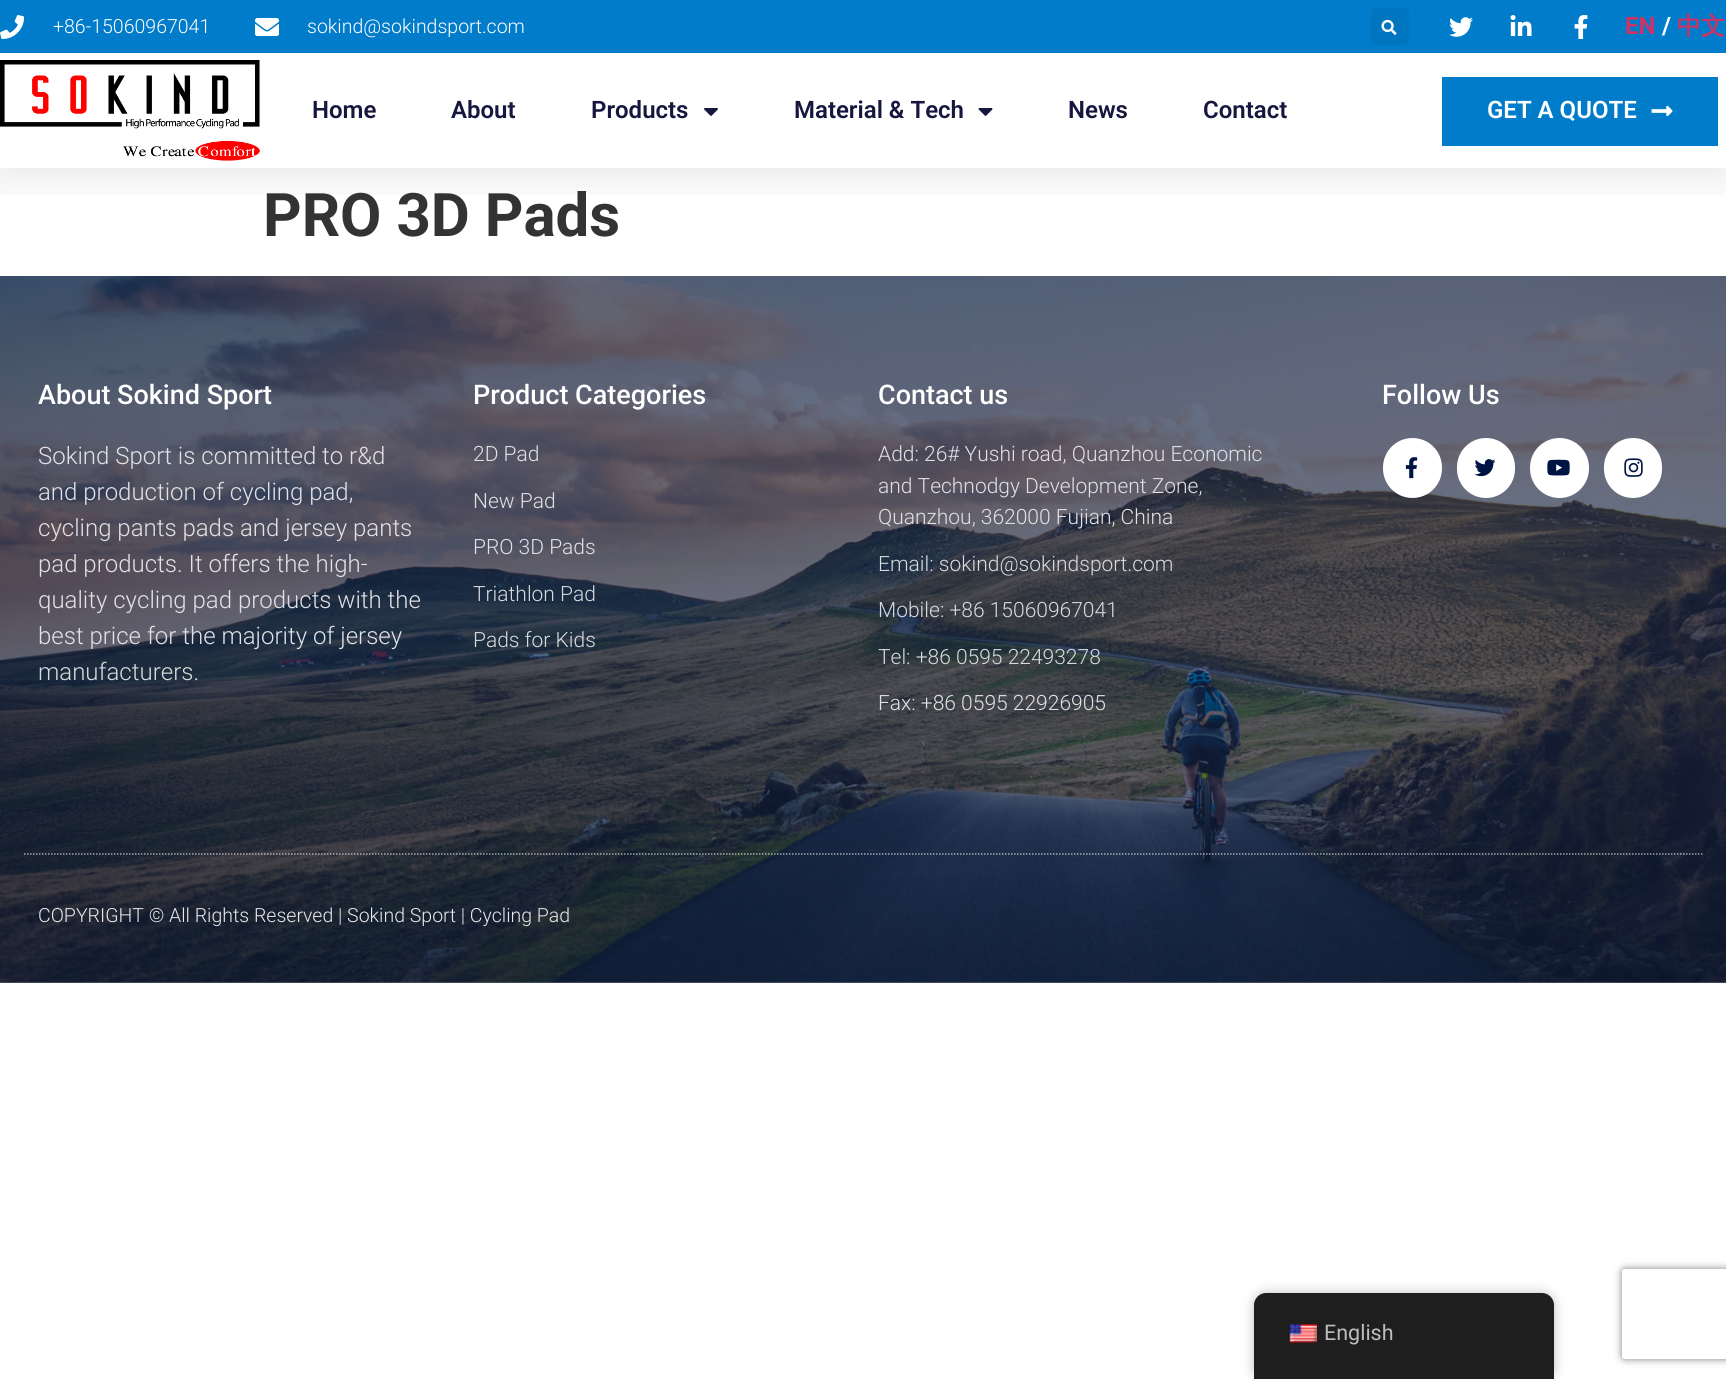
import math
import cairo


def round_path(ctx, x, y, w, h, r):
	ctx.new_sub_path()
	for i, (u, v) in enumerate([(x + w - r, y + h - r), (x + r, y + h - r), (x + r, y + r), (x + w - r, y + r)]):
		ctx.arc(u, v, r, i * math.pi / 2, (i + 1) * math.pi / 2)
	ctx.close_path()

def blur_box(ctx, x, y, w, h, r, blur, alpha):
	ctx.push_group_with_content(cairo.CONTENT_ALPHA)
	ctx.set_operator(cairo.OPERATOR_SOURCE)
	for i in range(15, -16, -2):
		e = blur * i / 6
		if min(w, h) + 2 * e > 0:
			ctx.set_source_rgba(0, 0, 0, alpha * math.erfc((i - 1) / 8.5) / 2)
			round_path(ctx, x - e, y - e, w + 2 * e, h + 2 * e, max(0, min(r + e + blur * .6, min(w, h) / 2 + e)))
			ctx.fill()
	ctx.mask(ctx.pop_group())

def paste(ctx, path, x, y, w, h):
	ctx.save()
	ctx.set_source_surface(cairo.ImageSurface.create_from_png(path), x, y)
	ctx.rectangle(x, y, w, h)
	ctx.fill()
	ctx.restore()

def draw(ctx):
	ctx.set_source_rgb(1, 1, 1)
	ctx.paint()
	ctx.set_source_rgb(0.4, 0.439, 0.525)
	ctx.rectangle(0, 982, 1726, 1)
	ctx.fill()
	ctx.save()
	ctx.rectangle(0, 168, 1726, 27)
	ctx.clip()
	ctx.set_source_rgb(0, 0, 0)
	blur_box(ctx, 0, 8, 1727, 168, 0, 22.5, 0.1)
	ctx.restore()
	ctx.set_source_rgb(0, 0.486, 0.792)
	ctx.rectangle(0, 0, 1726, 53)
	ctx.fill()
	paste(ctx, 'media/1.png', 0, 15, 25, 24)
	ctx.select_font_face('Roboto Light')
	ctx.set_font_size(19.5)
	ctx.set_source_rgb(1, 1, 1)
	ctx.move_to(53, 33)
	ctx.show_text('+86-15060967041')
	paste(ctx, 'media/2.png', 255, 18, 24, 18)
	ctx.move_to(307, 33)
	ctx.show_text('sokind@sokindsport.com')
	ctx.set_source_rgb(0, 0.463, 0.753)
	round_path(ctx, 1371, 8, 38, 37, 5)
	ctx.fill()
	paste(ctx, 'media/3.png', 1381, 19, 16, 16)
	paste(ctx, 'media/4.png', 1449, 17, 24, 20)
	paste(ctx, 'media/5.png', 1510, 15, 22, 21)
	paste(ctx, 'media/6.png', 1574, 15, 14, 24)
	ctx.select_font_face('Roboto', cairo.FONT_SLANT_NORMAL, cairo.FONT_WEIGHT_BOLD)
	ctx.set_font_size(24)
	ctx.set_source_rgb(0.8, 0.2, 0.4)
	ctx.move_to(1625, 34)
	ctx.show_text('EN')
	ctx.set_source_rgb(1, 1, 1)
	ctx.move_to(1662, 34)
	ctx.show_text('/')
	ctx.select_font_face('WenQuanYi Zen Hei', cairo.FONT_SLANT_NORMAL, cairo.FONT_WEIGHT_BOLD)
	ctx.set_source_rgb(0.8, 0.2, 0.4)
	ctx.move_to(1677, 34)
	ctx.show_text('中文')
	paste(ctx, 'media/7.png', 0, 60, 260, 101)
	ctx.select_font_face('Roboto SemiBold')
	ctx.set_source_rgb(0.086, 0.086, 0.247)
	for x, y, s in [
		(312, 118, 'Home'),
		(451, 118, 'About'),
		(591, 118, 'Products'),
	]:
		ctx.move_to(x, y)
		ctx.show_text(s)
	paste(ctx, 'media/8.png', 704, 108, 14, 8)
	ctx.move_to(794, 118)
	ctx.show_text('Material & Tech')
	paste(ctx, 'media/9.png', 978, 108, 15, 8)
	ctx.move_to(1068, 118)
	ctx.show_text('News')
	ctx.move_to(1203, 118)
	ctx.show_text('Contact')
	ctx.set_source_rgb(0, 0.486, 0.792)
	ctx.rectangle(1442, 77, 276, 69)
	ctx.fill()
	ctx.set_source_rgb(1, 1, 1)
	ctx.move_to(1487, 118)
	ctx.show_text('GET A QUOTE')
	paste(ctx, 'media/10.png', 1651, 105, 22, 12)
	ctx.select_font_face('Roboto', cairo.FONT_SLANT_NORMAL, cairo.FONT_WEIGHT_BOLD)
	ctx.set_font_size(60)
	ctx.set_source_rgb(0.2, 0.2, 0.2)
	ctx.move_to(263, 236)
	ctx.show_text('PRO 3D Pads')
	paste(ctx, 'media/11.png', 0, 276, 1726, 707)
	ctx.select_font_face('Roboto Medium')
	ctx.set_font_size(27)
	ctx.set_source_rgb(1, 1, 1)
	ctx.move_to(38, 404)
	ctx.show_text('About Sokind Sport')
	ctx.select_font_face('Roboto Light')
	ctx.set_font_size(24)
	ctx.set_source_rgb(0.886, 0.886, 0.898)
	for x, y, s in [
		(38, 464, 'Sokind Sport is committed to r&d'),
		(38, 500, 'and production of cycling pad,'),
		(38, 536, 'cycling pants pads and jersey pants'),
		(38, 572, 'pad products. It offers the high-'),
		(38, 608, 'quality cycling pad products with the'),
		(38, 644, 'best price for the majority of jersey'),
	]:
		ctx.move_to(x, y)
		ctx.show_text(s)
	ctx.set_source_rgb(0.847, 0.859, 0.871)
	ctx.move_to(38, 680)
	ctx.show_text('manufacturers.')
	ctx.select_font_face('Roboto Medium')
	ctx.set_font_size(27)
	ctx.set_source_rgb(1, 1, 1)
	ctx.move_to(473, 404)
	ctx.show_text('Product Categories')
	ctx.select_font_face('Roboto Light')
	ctx.set_font_size(21)
	ctx.set_source_rgb(0.886, 0.886, 0.898)
	for x, y, s in [
		(473, 461, '2D Pad'),
		(473, 508, 'New Pad'),
		(473, 554, 'PRO 3D Pads'),
	]:
		ctx.move_to(x, y)
		ctx.show_text(s)
	ctx.set_source_rgb(0.847, 0.859, 0.871)
	ctx.move_to(473, 601)
	ctx.show_text('Triathlon Pad')
	ctx.move_to(473, 647)
	ctx.show_text('Pads for Kids')
	ctx.select_font_face('Roboto Medium')
	ctx.set_font_size(27)
	ctx.set_source_rgb(1, 1, 1)
	ctx.move_to(878, 404)
	ctx.show_text('Contact us')
	ctx.select_font_face('Roboto Light')
	ctx.set_font_size(21)
	ctx.set_source_rgb(0.886, 0.886, 0.898)
	for x, y, s in [
		(878, 461, 'Add: 26# Yushi road, Quanzhou Economic'),
		(878, 493, 'and Technodgy Development Zone,'),
		(878, 524, 'Quanzhou, 362000 Fujian, China'),
	]:
		ctx.move_to(x, y)
		ctx.show_text(s)
	ctx.set_source_rgb(0.847, 0.859, 0.871)
	for x, y, s in [
		(878, 571, 'Email: sokind@sokindsport.com'),
		(878, 617, 'Mobile: +86 15060967041'),
		(878, 664, 'Tel: +86 0595 22493278'),
	]:
		ctx.move_to(x, y)
		ctx.show_text(s)
	ctx.set_source_rgb(0.886, 0.886, 0.898)
	ctx.move_to(878, 710)
	ctx.show_text('Fax: +86 0595 22926905')
	ctx.select_font_face('Roboto Medium')
	ctx.set_font_size(27)
	ctx.set_source_rgb(1, 1, 1)
	ctx.move_to(1382, 404)
	ctx.show_text('Follow Us')
	round_path(ctx, 1383, 438, 59, 60, 29.5)
	ctx.fill()
	paste(ctx, 'media/12.png', 1405, 457, 13, 22)
	round_path(ctx, 1457, 438, 58, 60, 29)
	ctx.fill()
	paste(ctx, 'media/13.png', 1474, 459, 22, 18)
	round_path(ctx, 1530, 438, 59, 60, 29.5)
	ctx.fill()
	paste(ctx, 'media/14.png', 1547, 459, 23, 17)
	round_path(ctx, 1604, 438, 58, 60, 29)
	ctx.fill()
	paste(ctx, 'media/15.png', 1624, 458, 19, 19)
	ctx.new_path()
	ctx.move_to(24, 854)
	ctx.line_to(1704, 854)
	ctx.set_source_rgba(1, 1, 1, 0.59)
	ctx.set_line_width(1.5)
	ctx.set_dash([1.5, 1.5])
	ctx.stroke()
	ctx.select_font_face('Roboto Light')
	ctx.set_font_size(19.5)
	ctx.set_source_rgb(0.91, 0.914, 0.918)
	ctx.move_to(38, 922)
	ctx.show_text('COPYRIGHT © All Rights Reserved | Sokind Sport | Cycling Pad')
	ctx.set_source_rgb(0, 0, 0)
	blur_box(ctx, 1254, 1293, 300, 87, 12, 6, 0.25)
	ctx.set_source_rgb(0.118, 0.118, 0.118)
	ctx.new_path()
	ctx.move_to(1266, 1293)
	ctx.line_to(1542, 1293)
	ctx.curve_to(1548.5, 1293, 1554, 1298.5, 1554, 1305)
	ctx.line_to(1554, 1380)
	ctx.line_to(1254, 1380)
	ctx.line_to(1254, 1305)
	ctx.curve_to(1254, 1298.5, 1259.5, 1293, 1266, 1293)
	ctx.close_path()
	ctx.fill()
	paste(ctx, 'media/16.png', 1289, 1324, 28, 19)
	ctx.select_font_face('Roboto')
	ctx.set_font_size(21.5)
	ctx.set_source_rgb(0.741, 0.741, 0.741)
	ctx.move_to(1324, 1340)
	ctx.show_text('English')
	ctx.save()
	ctx.set_fill_rule(cairo.FILL_RULE_EVEN_ODD)
	ctx.new_path()
	ctx.move_to(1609, 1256)
	ctx.line_to(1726, 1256)
	ctx.line_to(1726, 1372)
	ctx.line_to(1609, 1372)
	ctx.close_path()
	ctx.move_to(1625, 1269)
	ctx.line_to(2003, 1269)
	ctx.curve_to(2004.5, 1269, 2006, 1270.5, 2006, 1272)
	ctx.line_to(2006, 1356)
	ctx.curve_to(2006, 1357.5, 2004.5, 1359, 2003, 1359)
	ctx.line_to(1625, 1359)
	ctx.curve_to(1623.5, 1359, 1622, 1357.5, 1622, 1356)
	ctx.line_to(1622, 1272)
	ctx.curve_to(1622, 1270.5, 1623.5, 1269, 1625, 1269)
	ctx.close_path()
	ctx.clip()
	ctx.set_source_rgb(0.502, 0.502, 0.502)
	blur_box(ctx, 1622, 1269, 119, 90, 3, 4, 1)
	ctx.restore()


surface = cairo.ImageSurface(cairo.FORMAT_RGB24, 1726, 1379)
ctx = cairo.Context(surface)
options = cairo.FontOptions()
options.set_hint_metrics(cairo.HINT_METRICS_OFF)
options.set_hint_style(cairo.HINT_STYLE_NONE)
ctx.set_font_options(options)
ctx.set_miter_limit(4)
draw(ctx)
surface.write_to_png('image.png')
